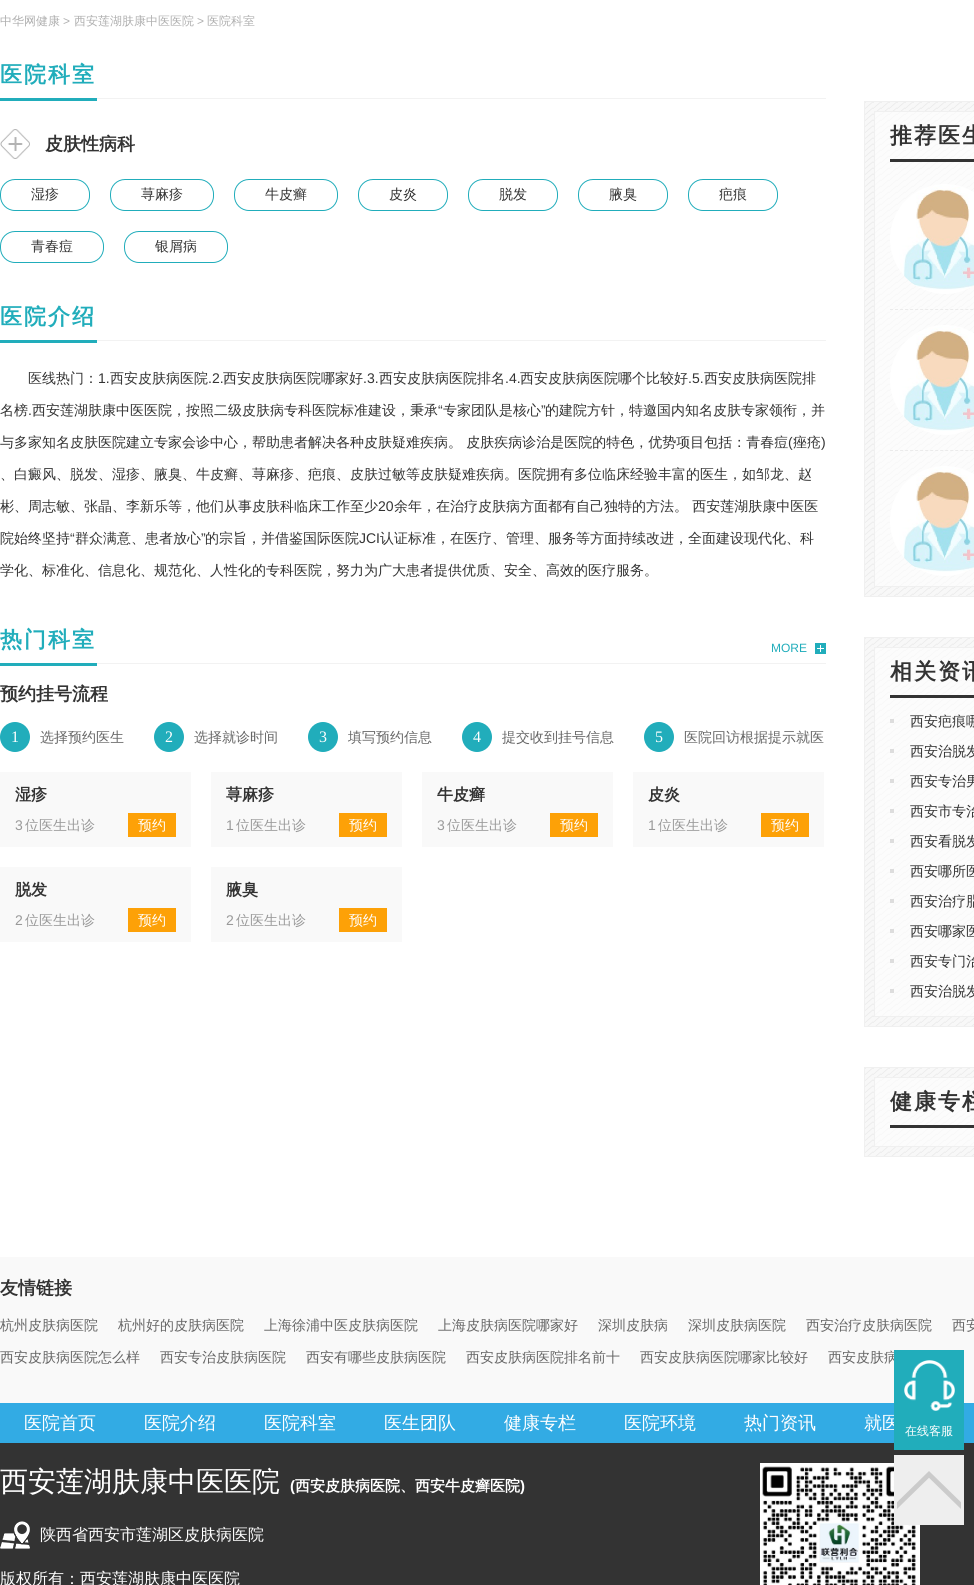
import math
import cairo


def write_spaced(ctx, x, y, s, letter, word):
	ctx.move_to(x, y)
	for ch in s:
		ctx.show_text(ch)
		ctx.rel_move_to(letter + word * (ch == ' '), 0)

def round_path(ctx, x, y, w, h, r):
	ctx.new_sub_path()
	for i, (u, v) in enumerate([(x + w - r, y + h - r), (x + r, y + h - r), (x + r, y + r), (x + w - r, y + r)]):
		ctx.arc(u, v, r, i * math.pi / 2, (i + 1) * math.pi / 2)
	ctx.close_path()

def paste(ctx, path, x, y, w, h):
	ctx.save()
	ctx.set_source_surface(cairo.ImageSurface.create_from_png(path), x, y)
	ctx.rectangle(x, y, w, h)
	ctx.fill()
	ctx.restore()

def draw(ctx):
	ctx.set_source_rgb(1, 1, 1)
	ctx.paint()
	ctx.select_font_face('WenQuanYi Zen Hei Medium')
	ctx.set_font_size(12)
	ctx.set_source_rgb(0.686, 0.686, 0.686)
	ctx.move_to(0, 25)
	ctx.show_text('中华网健康')
	ctx.select_font_face('Liberation Sans')
	ctx.move_to(63, 25)
	ctx.show_text('>')
	ctx.select_font_face('WenQuanYi Zen Hei Medium')
	ctx.move_to(74, 25)
	ctx.show_text('西安莲湖肤康中医医院')
	ctx.select_font_face('Liberation Sans')
	ctx.move_to(197, 25)
	ctx.show_text('>')
	ctx.select_font_face('WenQuanYi Zen Hei Medium')
	ctx.move_to(207, 25)
	ctx.show_text('医院科室')
	ctx.set_source_rgb(0.949, 0.949, 0.949)
	ctx.rectangle(97, 98, 729, 1)
	ctx.fill()
	ctx.set_source_rgb(0.129, 0.678, 0.733)
	ctx.rectangle(0, 98, 97, 3)
	ctx.fill()
	ctx.select_font_face('WenQuanYi Zen Hei', cairo.FONT_SLANT_NORMAL, cairo.FONT_WEIGHT_BOLD)
	ctx.set_font_size(22)
	write_spaced(ctx, 0, 82, '医院科室', 2, 0)
	paste(ctx, 'media/1.png', 0, 129, 30, 30)
	ctx.set_font_size(18)
	ctx.set_source_rgb(0.2, 0.2, 0.2)
	ctx.move_to(45, 150)
	ctx.show_text('皮肤性病科')
	round_path(ctx, 0.5, 179.5, 89, 31, 14.5)
	ctx.set_source_rgb(0.129, 0.678, 0.733)
	ctx.set_line_width(1)
	ctx.stroke()
	ctx.select_font_face('WenQuanYi Zen Hei Medium')
	ctx.set_font_size(14)
	ctx.set_source_rgb(0.2, 0.2, 0.2)
	ctx.move_to(31, 199)
	ctx.show_text('湿疹')
	round_path(ctx, 110.5, 179.5, 103, 31, 14.5)
	ctx.set_source_rgb(0.129, 0.678, 0.733)
	ctx.stroke()
	ctx.set_source_rgb(0.2, 0.2, 0.2)
	ctx.move_to(141, 199)
	ctx.show_text('荨麻疹')
	round_path(ctx, 234.5, 179.5, 103, 31, 14.5)
	ctx.set_source_rgb(0.129, 0.678, 0.733)
	ctx.stroke()
	ctx.set_source_rgb(0.2, 0.2, 0.2)
	ctx.move_to(265, 199)
	ctx.show_text('牛皮癣')
	round_path(ctx, 358.5, 179.5, 89, 31, 14.5)
	ctx.set_source_rgb(0.129, 0.678, 0.733)
	ctx.stroke()
	ctx.set_source_rgb(0.2, 0.2, 0.2)
	ctx.move_to(389, 199)
	ctx.show_text('皮炎')
	round_path(ctx, 468.5, 179.5, 89, 31, 14.5)
	ctx.set_source_rgb(0.129, 0.678, 0.733)
	ctx.stroke()
	ctx.set_source_rgb(0.2, 0.2, 0.2)
	ctx.move_to(499, 199)
	ctx.show_text('脱发')
	round_path(ctx, 578.5, 179.5, 89, 31, 14.5)
	ctx.set_source_rgb(0.129, 0.678, 0.733)
	ctx.stroke()
	ctx.set_source_rgb(0.2, 0.2, 0.2)
	ctx.move_to(609, 199)
	ctx.show_text('腋臭')
	round_path(ctx, 688.5, 179.5, 89, 31, 14.5)
	ctx.set_source_rgb(0.129, 0.678, 0.733)
	ctx.stroke()
	ctx.set_source_rgb(0.2, 0.2, 0.2)
	ctx.move_to(719, 199)
	ctx.show_text('疤痕')
	round_path(ctx, 0.5, 231.5, 103, 31, 14.5)
	ctx.set_source_rgb(0.129, 0.678, 0.733)
	ctx.stroke()
	ctx.set_source_rgb(0.2, 0.2, 0.2)
	ctx.move_to(31, 251)
	ctx.show_text('青春痘')
	round_path(ctx, 124.5, 231.5, 103, 31, 14.5)
	ctx.set_source_rgb(0.129, 0.678, 0.733)
	ctx.stroke()
	ctx.set_source_rgb(0.2, 0.2, 0.2)
	ctx.move_to(155, 251)
	ctx.show_text('银屑病')
	ctx.set_source_rgb(0.949, 0.949, 0.949)
	ctx.rectangle(97, 340, 729, 1)
	ctx.fill()
	ctx.set_source_rgb(0.129, 0.678, 0.733)
	ctx.rectangle(0, 340, 97, 3)
	ctx.fill()
	ctx.select_font_face('WenQuanYi Zen Hei', cairo.FONT_SLANT_NORMAL, cairo.FONT_WEIGHT_BOLD)
	ctx.set_font_size(22)
	write_spaced(ctx, 0, 324, '医院介绍', 2, 0)
	ctx.select_font_face('WenQuanYi Zen Hei Medium')
	ctx.set_font_size(14)
	ctx.set_source_rgb(0.2, 0.2, 0.2)
	ctx.move_to(28, 383)
	ctx.show_text('医线热门：')
	ctx.select_font_face('Liberation Sans')
	ctx.move_to(98, 383)
	ctx.show_text('1.')
	ctx.select_font_face('WenQuanYi Zen Hei Medium')
	ctx.move_to(110, 383)
	ctx.show_text('西安皮肤病医院')
	ctx.select_font_face('Liberation Sans')
	ctx.move_to(208, 383)
	ctx.show_text('.2.')
	ctx.select_font_face('WenQuanYi Zen Hei Medium')
	ctx.move_to(223, 383)
	ctx.show_text('西安皮肤病医院哪家好')
	ctx.select_font_face('Liberation Sans')
	ctx.move_to(363, 383)
	ctx.show_text('.3.')
	ctx.select_font_face('WenQuanYi Zen Hei Medium')
	ctx.move_to(379, 383)
	ctx.show_text('西安皮肤病医院排名')
	ctx.select_font_face('Liberation Sans')
	ctx.move_to(505, 383)
	ctx.show_text('.4.')
	ctx.select_font_face('WenQuanYi Zen Hei Medium')
	ctx.move_to(520, 383)
	ctx.show_text('西安皮肤病医院哪个比较好')
	ctx.select_font_face('Liberation Sans')
	ctx.move_to(688, 383)
	ctx.show_text('.5.')
	ctx.select_font_face('WenQuanYi Zen Hei Medium')
	for x, y, s in [
		(704, 383, '西安皮肤病医院排'),
		(0, 415, '名榜'),
		(32, 415, '西安莲湖肤康中医医院，按照二级皮肤病专科医院标准建设，秉承'),
	]:
		ctx.move_to(x, y)
		ctx.show_text(s)
	ctx.select_font_face('Liberation Sans')
	ctx.move_to(438, 415)
	ctx.show_text('“')
	ctx.select_font_face('WenQuanYi Zen Hei Medium')
	ctx.move_to(443, 415)
	ctx.show_text('专家团队是核心')
	ctx.select_font_face('Liberation Sans')
	ctx.move_to(541, 415)
	ctx.show_text('”')
	ctx.select_font_face('WenQuanYi Zen Hei Medium')
	ctx.move_to(545, 415)
	ctx.show_text('的建院方针，特邀国内知名皮肤专家领衔，并')
	ctx.select_font_face('Liberation Sans')
	ctx.move_to(28, 415)
	ctx.show_text('.')
	ctx.select_font_face('WenQuanYi Zen Hei Medium')
	ctx.move_to(0, 447)
	ctx.show_text('与多家知名皮肤医院建立专家会诊中心，帮助患者解决各种皮肤疑难疾病。 皮肤疾病诊治是医院的特色，优势项目包括：青春痘')
	ctx.select_font_face('Liberation Sans')
	ctx.move_to(788, 447)
	ctx.show_text('(')
	ctx.select_font_face('WenQuanYi Zen Hei Medium')
	ctx.move_to(793, 447)
	ctx.show_text('痤疮')
	ctx.select_font_face('Liberation Sans')
	ctx.move_to(821, 447)
	ctx.show_text(')')
	ctx.select_font_face('WenQuanYi Zen Hei Medium')
	ctx.move_to(0, 479)
	ctx.show_text('、白癜风、脱发、湿疹、腋臭、牛皮癣、荨麻疹、疤痕、皮肤过敏等皮肤疑难疾病。医院拥有多位临床经验丰富的医生，如邹龙、赵')
	ctx.move_to(0, 511)
	ctx.show_text('彬、周志敏、张晶、李新乐等，他们从事皮肤科临床工作至少')
	ctx.select_font_face('Liberation Sans')
	ctx.move_to(378, 511)
	ctx.show_text('20')
	ctx.select_font_face('WenQuanYi Zen Hei Medium')
	ctx.move_to(394, 511)
	ctx.show_text('余年，在治疗皮肤病方面都有自己独特的方法。 西安莲湖肤康中医医')
	ctx.move_to(0, 543)
	ctx.show_text('院始终坚持')
	ctx.select_font_face('Liberation Sans')
	ctx.move_to(70, 543)
	ctx.show_text('“')
	ctx.select_font_face('WenQuanYi Zen Hei Medium')
	ctx.move_to(75, 543)
	ctx.show_text('群众满意、患者放心')
	ctx.select_font_face('Liberation Sans')
	ctx.move_to(201, 543)
	ctx.show_text('”')
	ctx.select_font_face('WenQuanYi Zen Hei Medium')
	ctx.move_to(205, 543)
	ctx.show_text('的宗旨，并借鉴国际医院')
	ctx.select_font_face('Liberation Sans')
	ctx.move_to(359, 543)
	ctx.show_text('JCI')
	ctx.select_font_face('WenQuanYi Zen Hei Medium')
	ctx.move_to(380, 543)
	ctx.show_text('认证标准，在医疗、管理、服务等方面持续改进，全面建设现代化、科')
	ctx.move_to(0, 575)
	ctx.show_text('学化、标准化、信息化、规范化、人性化的专科医院，努力为广大患者提供优质、安全、高效的医疗服务。')
	ctx.set_source_rgb(0.949, 0.949, 0.949)
	ctx.rectangle(97, 663, 729, 1)
	ctx.fill()
	ctx.set_source_rgb(0.129, 0.678, 0.733)
	ctx.rectangle(0, 663, 97, 3)
	ctx.fill()
	ctx.select_font_face('WenQuanYi Zen Hei', cairo.FONT_SLANT_NORMAL, cairo.FONT_WEIGHT_BOLD)
	ctx.set_font_size(22)
	write_spaced(ctx, 0, 647, '热门科室', 2, 0)
	ctx.select_font_face('Liberation Sans')
	ctx.set_font_size(12)
	ctx.move_to(771, 652)
	ctx.show_text('MORE')
	paste(ctx, 'media/2.png', 815, 643, 11, 11)
	ctx.select_font_face('WenQuanYi Zen Hei', cairo.FONT_SLANT_NORMAL, cairo.FONT_WEIGHT_BOLD)
	ctx.set_font_size(18)
	ctx.set_source_rgb(0.2, 0.2, 0.2)
	ctx.move_to(0, 700)
	ctx.show_text('预约挂号流程')
	ctx.set_source_rgb(0.129, 0.678, 0.733)
	ctx.new_path()
	ctx.arc(15, 737, 15, 0, 2 * math.pi)
	ctx.fill()
	ctx.select_font_face('Liberation Serif')
	ctx.set_font_size(16)
	ctx.set_source_rgb(1, 1, 1)
	ctx.move_to(11, 742)
	ctx.show_text('1')
	ctx.select_font_face('WenQuanYi Zen Hei Medium')
	ctx.set_font_size(14)
	ctx.set_source_rgb(0.4, 0.4, 0.4)
	ctx.move_to(40, 742)
	ctx.show_text('选择预约医生')
	ctx.set_source_rgb(0.129, 0.678, 0.733)
	ctx.new_path()
	ctx.arc(169, 737, 15, 0, 2 * math.pi)
	ctx.fill()
	ctx.select_font_face('Liberation Serif')
	ctx.set_font_size(16)
	ctx.set_source_rgb(1, 1, 1)
	ctx.move_to(165, 742)
	ctx.show_text('2')
	ctx.select_font_face('WenQuanYi Zen Hei Medium')
	ctx.set_font_size(14)
	ctx.set_source_rgb(0.4, 0.4, 0.4)
	ctx.move_to(194, 742)
	ctx.show_text('选择就诊时间')
	ctx.set_source_rgb(0.129, 0.678, 0.733)
	ctx.new_path()
	ctx.arc(323, 737, 15, 0, 2 * math.pi)
	ctx.fill()
	ctx.select_font_face('Liberation Serif')
	ctx.set_font_size(16)
	ctx.set_source_rgb(1, 1, 1)
	ctx.move_to(319, 742)
	ctx.show_text('3')
	ctx.select_font_face('WenQuanYi Zen Hei Medium')
	ctx.set_font_size(14)
	ctx.set_source_rgb(0.4, 0.4, 0.4)
	ctx.move_to(348, 742)
	ctx.show_text('填写预约信息')
	ctx.set_source_rgb(0.129, 0.678, 0.733)
	ctx.new_path()
	ctx.arc(477, 737, 15, 0, 2 * math.pi)
	ctx.fill()
	ctx.select_font_face('Liberation Serif')
	ctx.set_font_size(16)
	ctx.set_source_rgb(1, 1, 1)
	ctx.move_to(473, 742)
	ctx.show_text('4')
	ctx.select_font_face('WenQuanYi Zen Hei Medium')
	ctx.set_font_size(14)
	ctx.set_source_rgb(0.4, 0.4, 0.4)
	ctx.move_to(502, 742)
	ctx.show_text('提交收到挂号信息')
	ctx.set_source_rgb(0.129, 0.678, 0.733)
	ctx.new_path()
	ctx.arc(659, 737, 15, 0, 2 * math.pi)
	ctx.fill()
	ctx.select_font_face('Liberation Serif')
	ctx.set_font_size(16)
	ctx.set_source_rgb(1, 1, 1)
	ctx.move_to(655, 742)
	ctx.show_text('5')
	ctx.select_font_face('WenQuanYi Zen Hei Medium')
	ctx.set_font_size(14)
	ctx.set_source_rgb(0.4, 0.4, 0.4)
	ctx.move_to(684, 742)
	ctx.show_text('医院回访根据提示就医')
	ctx.set_source_rgb(0.973, 0.973, 0.973)
	ctx.rectangle(0, 772, 191, 75)
	ctx.fill()
	ctx.select_font_face('WenQuanYi Zen Hei', cairo.FONT_SLANT_NORMAL, cairo.FONT_WEIGHT_BOLD)
	ctx.set_font_size(16)
	ctx.set_source_rgb(0.2, 0.2, 0.2)
	ctx.move_to(15, 800)
	ctx.show_text('湿疹')
	ctx.select_font_face('Liberation Sans')
	ctx.set_font_size(14)
	ctx.set_source_rgb(0.6, 0.6, 0.6)
	ctx.move_to(15, 830)
	ctx.show_text('3')
	ctx.select_font_face('WenQuanYi Zen Hei Medium')
	ctx.move_to(25, 830)
	ctx.show_text('位医生出诊')
	ctx.set_source_rgb(0.992, 0.631, 0.031)
	ctx.rectangle(128, 813, 48, 24)
	ctx.fill()
	ctx.set_source_rgb(1, 1, 1)
	ctx.move_to(138, 830)
	ctx.show_text('预约')
	ctx.set_source_rgb(0.973, 0.973, 0.973)
	ctx.rectangle(211, 772, 191, 75)
	ctx.fill()
	ctx.select_font_face('WenQuanYi Zen Hei', cairo.FONT_SLANT_NORMAL, cairo.FONT_WEIGHT_BOLD)
	ctx.set_font_size(16)
	ctx.set_source_rgb(0.2, 0.2, 0.2)
	ctx.move_to(226, 800)
	ctx.show_text('荨麻疹')
	ctx.select_font_face('Liberation Sans')
	ctx.set_font_size(14)
	ctx.set_source_rgb(0.6, 0.6, 0.6)
	ctx.move_to(226, 830)
	ctx.show_text('1')
	ctx.select_font_face('WenQuanYi Zen Hei Medium')
	ctx.move_to(236, 830)
	ctx.show_text('位医生出诊')
	ctx.set_source_rgb(0.992, 0.631, 0.031)
	ctx.rectangle(339, 813, 48, 24)
	ctx.fill()
	ctx.set_source_rgb(1, 1, 1)
	ctx.move_to(349, 830)
	ctx.show_text('预约')
	ctx.set_source_rgb(0.973, 0.973, 0.973)
	ctx.rectangle(422, 772, 191, 75)
	ctx.fill()
	ctx.select_font_face('WenQuanYi Zen Hei', cairo.FONT_SLANT_NORMAL, cairo.FONT_WEIGHT_BOLD)
	ctx.set_font_size(16)
	ctx.set_source_rgb(0.2, 0.2, 0.2)
	ctx.move_to(437, 800)
	ctx.show_text('牛皮癣')
	ctx.select_font_face('Liberation Sans')
	ctx.set_font_size(14)
	ctx.set_source_rgb(0.6, 0.6, 0.6)
	ctx.move_to(437, 830)
	ctx.show_text('3')
	ctx.select_font_face('WenQuanYi Zen Hei Medium')
	ctx.move_to(447, 830)
	ctx.show_text('位医生出诊')
	ctx.set_source_rgb(0.992, 0.631, 0.031)
	ctx.rectangle(550, 813, 48, 24)
	ctx.fill()
	ctx.set_source_rgb(1, 1, 1)
	ctx.move_to(560, 830)
	ctx.show_text('预约')
	ctx.set_source_rgb(0.973, 0.973, 0.973)
	ctx.rectangle(633, 772, 191, 75)
	ctx.fill()
	ctx.select_font_face('WenQuanYi Zen Hei', cairo.FONT_SLANT_NORMAL, cairo.FONT_WEIGHT_BOLD)
	ctx.set_font_size(16)
	ctx.set_source_rgb(0.2, 0.2, 0.2)
	ctx.move_to(648, 800)
	ctx.show_text('皮炎')
	ctx.select_font_face('Liberation Sans')
	ctx.set_font_size(14)
	ctx.set_source_rgb(0.6, 0.6, 0.6)
	ctx.move_to(648, 830)
	ctx.show_text('1')
	ctx.select_font_face('WenQuanYi Zen Hei Medium')
	ctx.move_to(658, 830)
	ctx.show_text('位医生出诊')
	ctx.set_source_rgb(0.992, 0.631, 0.031)
	ctx.rectangle(761, 813, 48, 24)
	ctx.fill()
	ctx.set_source_rgb(1, 1, 1)
	ctx.move_to(771, 830)
	ctx.show_text('预约')
	ctx.set_source_rgb(0.973, 0.973, 0.973)
	ctx.rectangle(0, 867, 191, 75)
	ctx.fill()
	ctx.select_font_face('WenQuanYi Zen Hei', cairo.FONT_SLANT_NORMAL, cairo.FONT_WEIGHT_BOLD)
	ctx.set_font_size(16)
	ctx.set_source_rgb(0.2, 0.2, 0.2)
	ctx.move_to(15, 895)
	ctx.show_text('脱发')
	ctx.select_font_face('Liberation Sans')
	ctx.set_font_size(14)
	ctx.set_source_rgb(0.6, 0.6, 0.6)
	ctx.move_to(15, 925)
	ctx.show_text('2')
	ctx.select_font_face('WenQuanYi Zen Hei Medium')
	ctx.move_to(25, 925)
	ctx.show_text('位医生出诊')
	ctx.set_source_rgb(0.992, 0.631, 0.031)
	ctx.rectangle(128, 908, 48, 24)
	ctx.fill()
	ctx.set_source_rgb(1, 1, 1)
	ctx.move_to(138, 925)
	ctx.show_text('预约')
	ctx.set_source_rgb(0.973, 0.973, 0.973)
	ctx.rectangle(211, 867, 191, 75)
	ctx.fill()
	ctx.select_font_face('WenQuanYi Zen Hei', cairo.FONT_SLANT_NORMAL, cairo.FONT_WEIGHT_BOLD)
	ctx.set_font_size(16)
	ctx.set_source_rgb(0.2, 0.2, 0.2)
	ctx.move_to(226, 895)
	ctx.show_text('腋臭')
	ctx.select_font_face('Liberation Sans')
	ctx.set_font_size(14)
	ctx.set_source_rgb(0.6, 0.6, 0.6)
	ctx.move_to(226, 925)
	ctx.show_text('2')
	ctx.select_font_face('WenQuanYi Zen Hei Medium')
	ctx.move_to(236, 925)
	ctx.show_text('位医生出诊')
	ctx.set_source_rgb(0.992, 0.631, 0.031)
	ctx.rectangle(339, 908, 48, 24)
	ctx.fill()
	ctx.set_source_rgb(1, 1, 1)
	ctx.move_to(349, 925)
	ctx.show_text('预约')
	paste(ctx, 'media/3.png', 865, 102, 109, 494)
	ctx.rectangle(864.5, 101.5, 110, 495)
	ctx.set_source_rgb(0.941, 0.941, 0.941)
	ctx.stroke()
	ctx.set_source_rgba(1, 1, 1, 0.6)
	ctx.rectangle(874.5, 111.5, 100, 475)
	ctx.fill_preserve()
	ctx.set_source_rgb(0.941, 0.941, 0.941)
	ctx.stroke()
	ctx.set_source_rgb(0.2, 0.2, 0.2)
	ctx.rectangle(890, 159, 84, 3)
	ctx.fill()
	ctx.select_font_face('WenQuanYi Zen Hei', cairo.FONT_SLANT_NORMAL, cairo.FONT_WEIGHT_BOLD)
	ctx.set_font_size(22)
	write_spaced(ctx, 890, 143, '推荐医生', 2, 0)
	paste(ctx, 'media/4.png', 890, 184, 84, 110)
	ctx.new_path()
	ctx.move_to(890, 309.5)
	ctx.line_to(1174, 309.5)
	ctx.set_source_rgb(0.918, 0.918, 0.918)
	ctx.set_dash([3, 2.02])
	ctx.stroke()
	paste(ctx, 'media/5.png', 890, 325, 84, 110)
	ctx.new_path()
	ctx.move_to(890, 450.5)
	ctx.line_to(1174, 450.5)
	ctx.stroke()
	paste(ctx, 'media/6.png', 890, 466, 84, 110)
	paste(ctx, 'media/7.png', 865, 638, 109, 388)
	ctx.rectangle(864.5, 637.5, 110, 389)
	ctx.set_source_rgb(0.941, 0.941, 0.941)
	ctx.set_dash([])
	ctx.stroke()
	ctx.set_source_rgba(1, 1, 1, 0.6)
	ctx.rectangle(874.5, 647.5, 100, 369)
	ctx.fill_preserve()
	ctx.set_source_rgb(0.941, 0.941, 0.941)
	ctx.stroke()
	ctx.set_source_rgb(0.2, 0.2, 0.2)
	ctx.rectangle(890, 695, 84, 3)
	ctx.fill()
	write_spaced(ctx, 890, 679, '相关资讯', 2, 0)
	ctx.set_source_rgb(0.867, 0.867, 0.867)
	ctx.rectangle(890, 719, 4, 4)
	ctx.fill()
	ctx.select_font_face('WenQuanYi Zen Hei Medium')
	ctx.set_font_size(14)
	ctx.set_source_rgb(0.2, 0.2, 0.2)
	ctx.move_to(910, 726)
	ctx.show_text('西安疤痕哪')
	ctx.set_source_rgb(0.867, 0.867, 0.867)
	ctx.rectangle(890, 749, 4, 4)
	ctx.fill()
	ctx.set_source_rgb(0.2, 0.2, 0.2)
	ctx.move_to(910, 756)
	ctx.show_text('西安治脱发')
	ctx.set_source_rgb(0.867, 0.867, 0.867)
	ctx.rectangle(890, 779, 4, 4)
	ctx.fill()
	ctx.set_source_rgb(0.2, 0.2, 0.2)
	ctx.move_to(910, 786)
	ctx.show_text('西安专治男')
	ctx.set_source_rgb(0.867, 0.867, 0.867)
	ctx.rectangle(890, 809, 4, 4)
	ctx.fill()
	ctx.set_source_rgb(0.2, 0.2, 0.2)
	ctx.move_to(910, 816)
	ctx.show_text('西安市专治')
	ctx.set_source_rgb(0.867, 0.867, 0.867)
	ctx.rectangle(890, 839, 4, 4)
	ctx.fill()
	ctx.set_source_rgb(0.2, 0.2, 0.2)
	ctx.move_to(910, 846)
	ctx.show_text('西安看脱发')
	ctx.set_source_rgb(0.867, 0.867, 0.867)
	ctx.rectangle(890, 869, 4, 4)
	ctx.fill()
	ctx.set_source_rgb(0.2, 0.2, 0.2)
	ctx.move_to(910, 876)
	ctx.show_text('西安哪所医')
	ctx.set_source_rgb(0.867, 0.867, 0.867)
	ctx.rectangle(890, 899, 4, 4)
	ctx.fill()
	ctx.set_source_rgb(0.2, 0.2, 0.2)
	ctx.move_to(910, 906)
	ctx.show_text('西安治疗脂')
	ctx.set_source_rgb(0.867, 0.867, 0.867)
	ctx.rectangle(890, 929, 4, 4)
	ctx.fill()
	ctx.set_source_rgb(0.2, 0.2, 0.2)
	ctx.move_to(910, 936)
	ctx.show_text('西安哪家医')
	ctx.set_source_rgb(0.867, 0.867, 0.867)
	ctx.rectangle(890, 959, 4, 4)
	ctx.fill()
	ctx.set_source_rgb(0.2, 0.2, 0.2)
	ctx.move_to(910, 966)
	ctx.show_text('西安专门治')
	ctx.set_source_rgb(0.867, 0.867, 0.867)
	ctx.rectangle(890, 989, 4, 4)
	ctx.fill()
	ctx.set_source_rgb(0.2, 0.2, 0.2)
	ctx.move_to(910, 996)
	ctx.show_text('西安治脱发')
	paste(ctx, 'media/8.png', 865, 1068, 109, 88)
	ctx.rectangle(864.5, 1067.5, 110, 89)
	ctx.set_source_rgb(0.941, 0.941, 0.941)
	ctx.stroke()
	ctx.set_source_rgba(1, 1, 1, 0.6)
	ctx.rectangle(874.5, 1077.5, 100, 69)
	ctx.fill_preserve()
	ctx.set_source_rgb(0.941, 0.941, 0.941)
	ctx.stroke()
	ctx.set_source_rgb(0.2, 0.2, 0.2)
	ctx.rectangle(890, 1125, 84, 3)
	ctx.fill()
	ctx.select_font_face('WenQuanYi Zen Hei', cairo.FONT_SLANT_NORMAL, cairo.FONT_WEIGHT_BOLD)
	ctx.set_font_size(22)
	write_spaced(ctx, 890, 1109, '健康专栏', 2, 0)
	ctx.set_source_rgb(0.976, 0.973, 0.973)
	ctx.rectangle(0, 1257, 974, 146)
	ctx.fill()
	ctx.set_font_size(18)
	ctx.set_source_rgb(0.2, 0.2, 0.2)
	ctx.move_to(0, 1294)
	ctx.show_text('友情链接')
	ctx.select_font_face('WenQuanYi Zen Hei Medium')
	ctx.set_font_size(14)
	ctx.set_source_rgb(0.4, 0.4, 0.4)
	for x, y, s in [
		(0, 1330, '杭州皮肤病医院'),
		(118, 1330, '杭州好的皮肤病医院'),
		(264, 1330, '上海徐浦中医皮肤病医院'),
		(438, 1330, '上海皮肤病医院哪家好'),
		(598, 1330, '深圳皮肤病'),
		(688, 1330, '深圳皮肤病医院'),
		(806, 1330, '西安治疗皮肤病医院'),
		(952, 1330, '西安'),
		(0, 1362, '西安皮肤病医院怎么样'),
		(160, 1362, '西安专治皮肤病医院'),
		(306, 1362, '西安有哪些皮肤病医院'),
		(466, 1362, '西安皮肤病医院排名前十'),
		(640, 1362, '西安皮肤病医院哪家比较好'),
		(828, 1362, '西安皮肤病'),
	]:
		ctx.move_to(x, y)
		ctx.show_text(s)
	ctx.set_source_rgb(0.196, 0.671, 0.894)
	ctx.rectangle(0, 1403, 974, 40)
	ctx.fill()
	ctx.set_font_size(18)
	ctx.set_source_rgb(1, 1, 1)
	for x, y, s in [
		(24, 1429, '医院首页'),
		(144, 1429, '医院介绍'),
		(264, 1429, '医院科室'),
		(384, 1429, '医生团队'),
		(504, 1429, '健康专栏'),
		(624, 1429, '医院环境'),
		(744, 1429, '热门资讯'),
		(864, 1429, '就医'),
	]:
		ctx.move_to(x, y)
		ctx.show_text(s)
	ctx.set_source_rgb(0.2, 0.2, 0.2)
	ctx.rectangle(0, 1443, 974, 142)
	ctx.fill()
	ctx.set_source_rgb(0.129, 0.678, 0.733)
	ctx.rectangle(894, 1350, 70, 100)
	ctx.fill()
	paste(ctx, 'media/9.png', 904, 1360, 51, 51)
	ctx.set_font_size(12)
	ctx.set_source_rgb(1, 1, 1)
	ctx.move_to(905, 1435)
	ctx.show_text('在线客服')
	ctx.rectangle(760, 1463, 160, 122)
	ctx.fill()
	paste(ctx, 'media/12.png', 762, 1466, 154, 119)
	ctx.set_source_rgb(0.933, 0.933, 0.933)
	ctx.rectangle(894, 1455, 70, 70)
	ctx.fill()
	paste(ctx, 'media/10.png', 897, 1471, 64, 38)
	ctx.set_font_size(28)
	ctx.set_source_rgb(1, 1, 1)
	ctx.move_to(0, 1491)
	ctx.show_text('西安莲湖肤康中医医院')
	ctx.select_font_face('Liberation Sans', cairo.FONT_SLANT_NORMAL, cairo.FONT_WEIGHT_BOLD)
	ctx.set_font_size(15)
	ctx.move_to(290, 1491)
	ctx.show_text('(')
	ctx.select_font_face('WenQuanYi Zen Hei', cairo.FONT_SLANT_NORMAL, cairo.FONT_WEIGHT_BOLD)
	ctx.move_to(295, 1491)
	ctx.show_text('西安皮肤病医院、西安牛皮癣医院')
	ctx.select_font_face('Liberation Sans', cairo.FONT_SLANT_NORMAL, cairo.FONT_WEIGHT_BOLD)
	ctx.move_to(520, 1491)
	ctx.show_text(')')
	paste(ctx, 'media/11.png', 0, 1521, 30, 28)
	ctx.select_font_face('WenQuanYi Zen Hei Medium')
	ctx.set_font_size(16)
	ctx.move_to(40, 1540)
	ctx.show_text('陕西省西安市莲湖区皮肤病医院')
	ctx.move_to(0, 1584)
	ctx.show_text('版权所有：西安莲湖肤康中医医院')


surface = cairo.ImageSurface(cairo.FORMAT_RGB24, 974, 1585)
ctx = cairo.Context(surface)
options = cairo.FontOptions()
options.set_hint_metrics(cairo.HINT_METRICS_OFF)
options.set_hint_style(cairo.HINT_STYLE_NONE)
ctx.set_font_options(options)
ctx.set_miter_limit(4)
draw(ctx)
surface.write_to_png('image.png')
